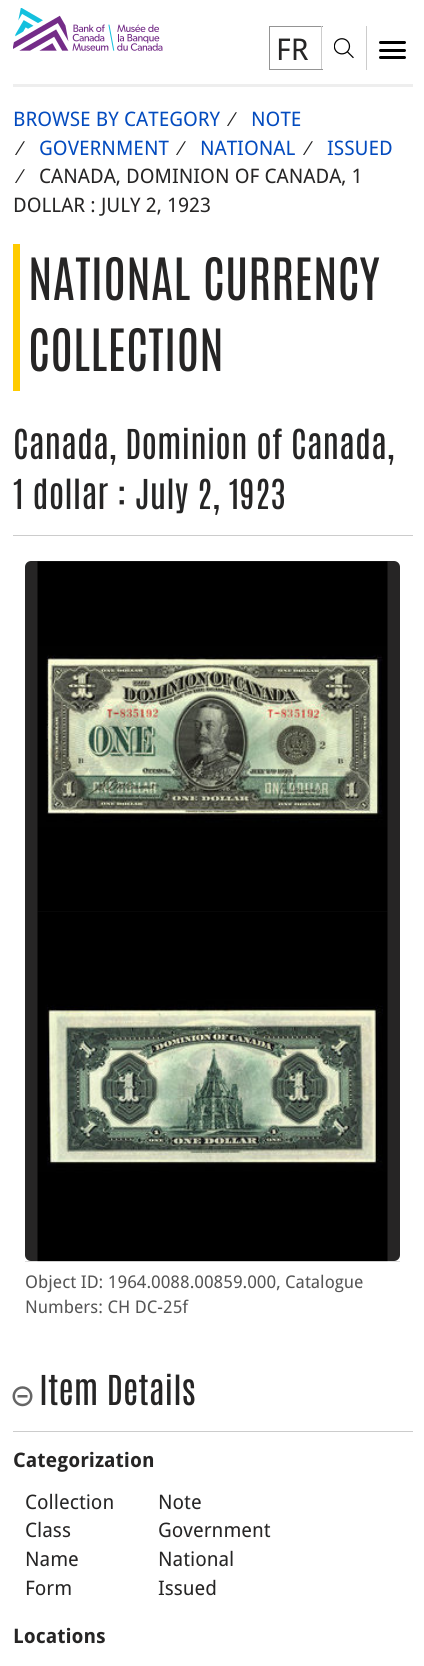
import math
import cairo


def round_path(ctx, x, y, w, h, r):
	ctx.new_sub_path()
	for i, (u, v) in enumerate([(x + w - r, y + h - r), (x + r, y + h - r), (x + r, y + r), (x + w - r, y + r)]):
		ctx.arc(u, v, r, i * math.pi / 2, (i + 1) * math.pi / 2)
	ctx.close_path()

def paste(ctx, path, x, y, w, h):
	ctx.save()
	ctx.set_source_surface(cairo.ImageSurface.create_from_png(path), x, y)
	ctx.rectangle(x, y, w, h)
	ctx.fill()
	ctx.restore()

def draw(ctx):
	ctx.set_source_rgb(1, 1, 1)
	ctx.paint()
	ctx.set_source_rgb(0.933, 0.933, 0.933)
	ctx.rectangle(13, 84, 400, 3)
	ctx.fill()
	paste(ctx, 'media/1.png', 13, 8, 150, 43)
	ctx.set_source_rgb(0.58, 0.58, 0.58)
	ctx.rectangle(269, 26, 54, 1)
	ctx.fill()
	ctx.set_source_rgb(0.8, 0.8, 0.8)
	ctx.rectangle(321, 26, 1, 44)
	ctx.fill()
	ctx.set_source_rgb(0.58, 0.58, 0.58)
	ctx.rectangle(269, 69, 54, 1)
	ctx.rectangle(269, 26, 1, 44)
	ctx.fill()
	ctx.select_font_face('Droid Sans')
	ctx.set_font_size(30)
	ctx.set_source_rgb(0.149, 0.145, 0.145)
	ctx.move_to(276, 60)
	ctx.show_text('FR')
	ctx.set_source_rgb(0.8, 0.8, 0.8)
	ctx.rectangle(366, 26, 1, 44)
	ctx.fill()
	paste(ctx, 'media/2.png', 334, 38, 20, 21)
	ctx.set_source_rgb(0, 0, 0)
	round_path(ctx, 379, 41, 27, 3, 1.5)
	ctx.fill()
	round_path(ctx, 379, 49, 27, 3, 1.5)
	ctx.fill()
	round_path(ctx, 379, 56, 27, 3, 1.5)
	ctx.fill()
	ctx.set_font_size(20)
	ctx.set_source_rgb(0.012, 0.294, 0.749)
	ctx.move_to(13, 126)
	ctx.show_text('BROWSE BY CATEGORY')
	ctx.select_font_face('Liberation Sans')
	ctx.set_source_rgb(0.149, 0.145, 0.145)
	ctx.move_to(231, 126)
	ctx.show_text('∕')
	ctx.select_font_face('Droid Sans')
	ctx.set_source_rgb(0.012, 0.294, 0.749)
	ctx.move_to(251, 126)
	ctx.show_text('NOTE')
	ctx.select_font_face('Liberation Sans')
	ctx.set_source_rgb(0.149, 0.145, 0.145)
	ctx.move_to(19, 155)
	ctx.show_text('∕')
	ctx.select_font_face('Droid Sans')
	ctx.set_source_rgb(0.012, 0.294, 0.749)
	ctx.move_to(39, 155)
	ctx.show_text('GOVERNMENT')
	ctx.select_font_face('Liberation Sans')
	ctx.set_source_rgb(0.149, 0.145, 0.145)
	ctx.move_to(180, 155)
	ctx.show_text('∕')
	ctx.select_font_face('Droid Sans')
	ctx.set_source_rgb(0.012, 0.294, 0.749)
	ctx.move_to(200, 155)
	ctx.show_text('NATIONAL')
	ctx.select_font_face('Liberation Sans')
	ctx.set_source_rgb(0.149, 0.145, 0.145)
	ctx.move_to(307, 155)
	ctx.show_text('∕')
	ctx.select_font_face('Droid Sans')
	ctx.set_source_rgb(0.012, 0.294, 0.749)
	ctx.move_to(327, 155)
	ctx.show_text('ISSUED')
	ctx.select_font_face('Liberation Sans')
	ctx.set_source_rgb(0.149, 0.145, 0.145)
	ctx.move_to(19, 183)
	ctx.show_text('∕')
	ctx.select_font_face('Droid Sans')
	ctx.move_to(39, 183)
	ctx.show_text('CANADA, DOMINION OF CANADA, 1')
	ctx.move_to(13, 212)
	ctx.show_text('DOLLAR : JULY 2, 1923')
	ctx.set_source_rgb(1, 0.796, 0)
	ctx.rectangle(13, 244, 7, 147)
	ctx.fill()
	ctx.select_font_face('Antonio')
	ctx.set_font_size(49.5)
	ctx.set_source_rgb(0.149, 0.145, 0.145)
	ctx.move_to(28, 300)
	ctx.show_text('NATIONAL CURRENCY')
	ctx.move_to(28, 371)
	ctx.show_text('COLLECTION')
	ctx.set_source_rgb(0.8, 0.8, 0.8)
	ctx.rectangle(13, 535, 400, 1)
	ctx.fill()
	ctx.set_font_size(35)
	ctx.set_source_rgb(0.149, 0.145, 0.145)
	ctx.move_to(13, 459)
	ctx.show_text('Canada, Dominion of Canada,')
	ctx.move_to(13, 509)
	ctx.show_text('1 dollar : July 2, 1923')
	round_path(ctx, 25, 561, 375, 700, 6)
	ctx.fill()
	paste(ctx, 'media/3.png', 37, 561, 351, 351)
	ctx.set_source_rgb(0.867, 0.867, 0.867)
	ctx.rectangle(25, 1261, 375, 1)
	ctx.fill()
	paste(ctx, 'media/4.png', 37, 911, 351, 351)
	ctx.select_font_face('Droid Sans')
	ctx.set_font_size(17.5)
	ctx.set_source_rgb(0.333, 0.333, 0.333)
	ctx.move_to(25, 1288)
	ctx.show_text('Object ID: 1964.0088.00859.000, Catalogue')
	ctx.move_to(25, 1313)
	ctx.show_text('Numbers: CH DC-25f')
	ctx.set_source_rgb(0.8, 0.8, 0.8)
	ctx.rectangle(13, 1431, 400, 1)
	ctx.fill()
	paste(ctx, 'media/5.png', 12, 1386, 21, 21)
	ctx.select_font_face('Antonio')
	ctx.set_font_size(35)
	ctx.set_source_rgb(0.149, 0.145, 0.145)
	ctx.move_to(39, 1405)
	ctx.show_text('Item Details')
	ctx.select_font_face('Droid Sans', cairo.FONT_SLANT_NORMAL, cairo.FONT_WEIGHT_BOLD)
	ctx.set_font_size(20)
	ctx.move_to(13, 1467)
	ctx.show_text('Categorization')
	ctx.select_font_face('Droid Sans')
	for x, y, s in [
		(25, 1509, 'Collection'),
		(158, 1509, 'Note'),
		(25, 1537, 'Class'),
		(158, 1537, 'Government'),
		(25, 1566, 'Name'),
		(158, 1566, 'National'),
		(25, 1595, 'Form'),
		(158, 1595, 'Issued'),
	]:
		ctx.move_to(x, y)
		ctx.show_text(s)
	ctx.select_font_face('Droid Sans', cairo.FONT_SLANT_NORMAL, cairo.FONT_WEIGHT_BOLD)
	ctx.move_to(13, 1643)
	ctx.show_text('Locations')


surface = cairo.ImageSurface(cairo.FORMAT_RGB24, 424, 1666)
ctx = cairo.Context(surface)
options = cairo.FontOptions()
options.set_hint_metrics(cairo.HINT_METRICS_OFF)
options.set_hint_style(cairo.HINT_STYLE_NONE)
ctx.set_font_options(options)
ctx.set_miter_limit(4)
draw(ctx)
surface.write_to_png('image.png')
